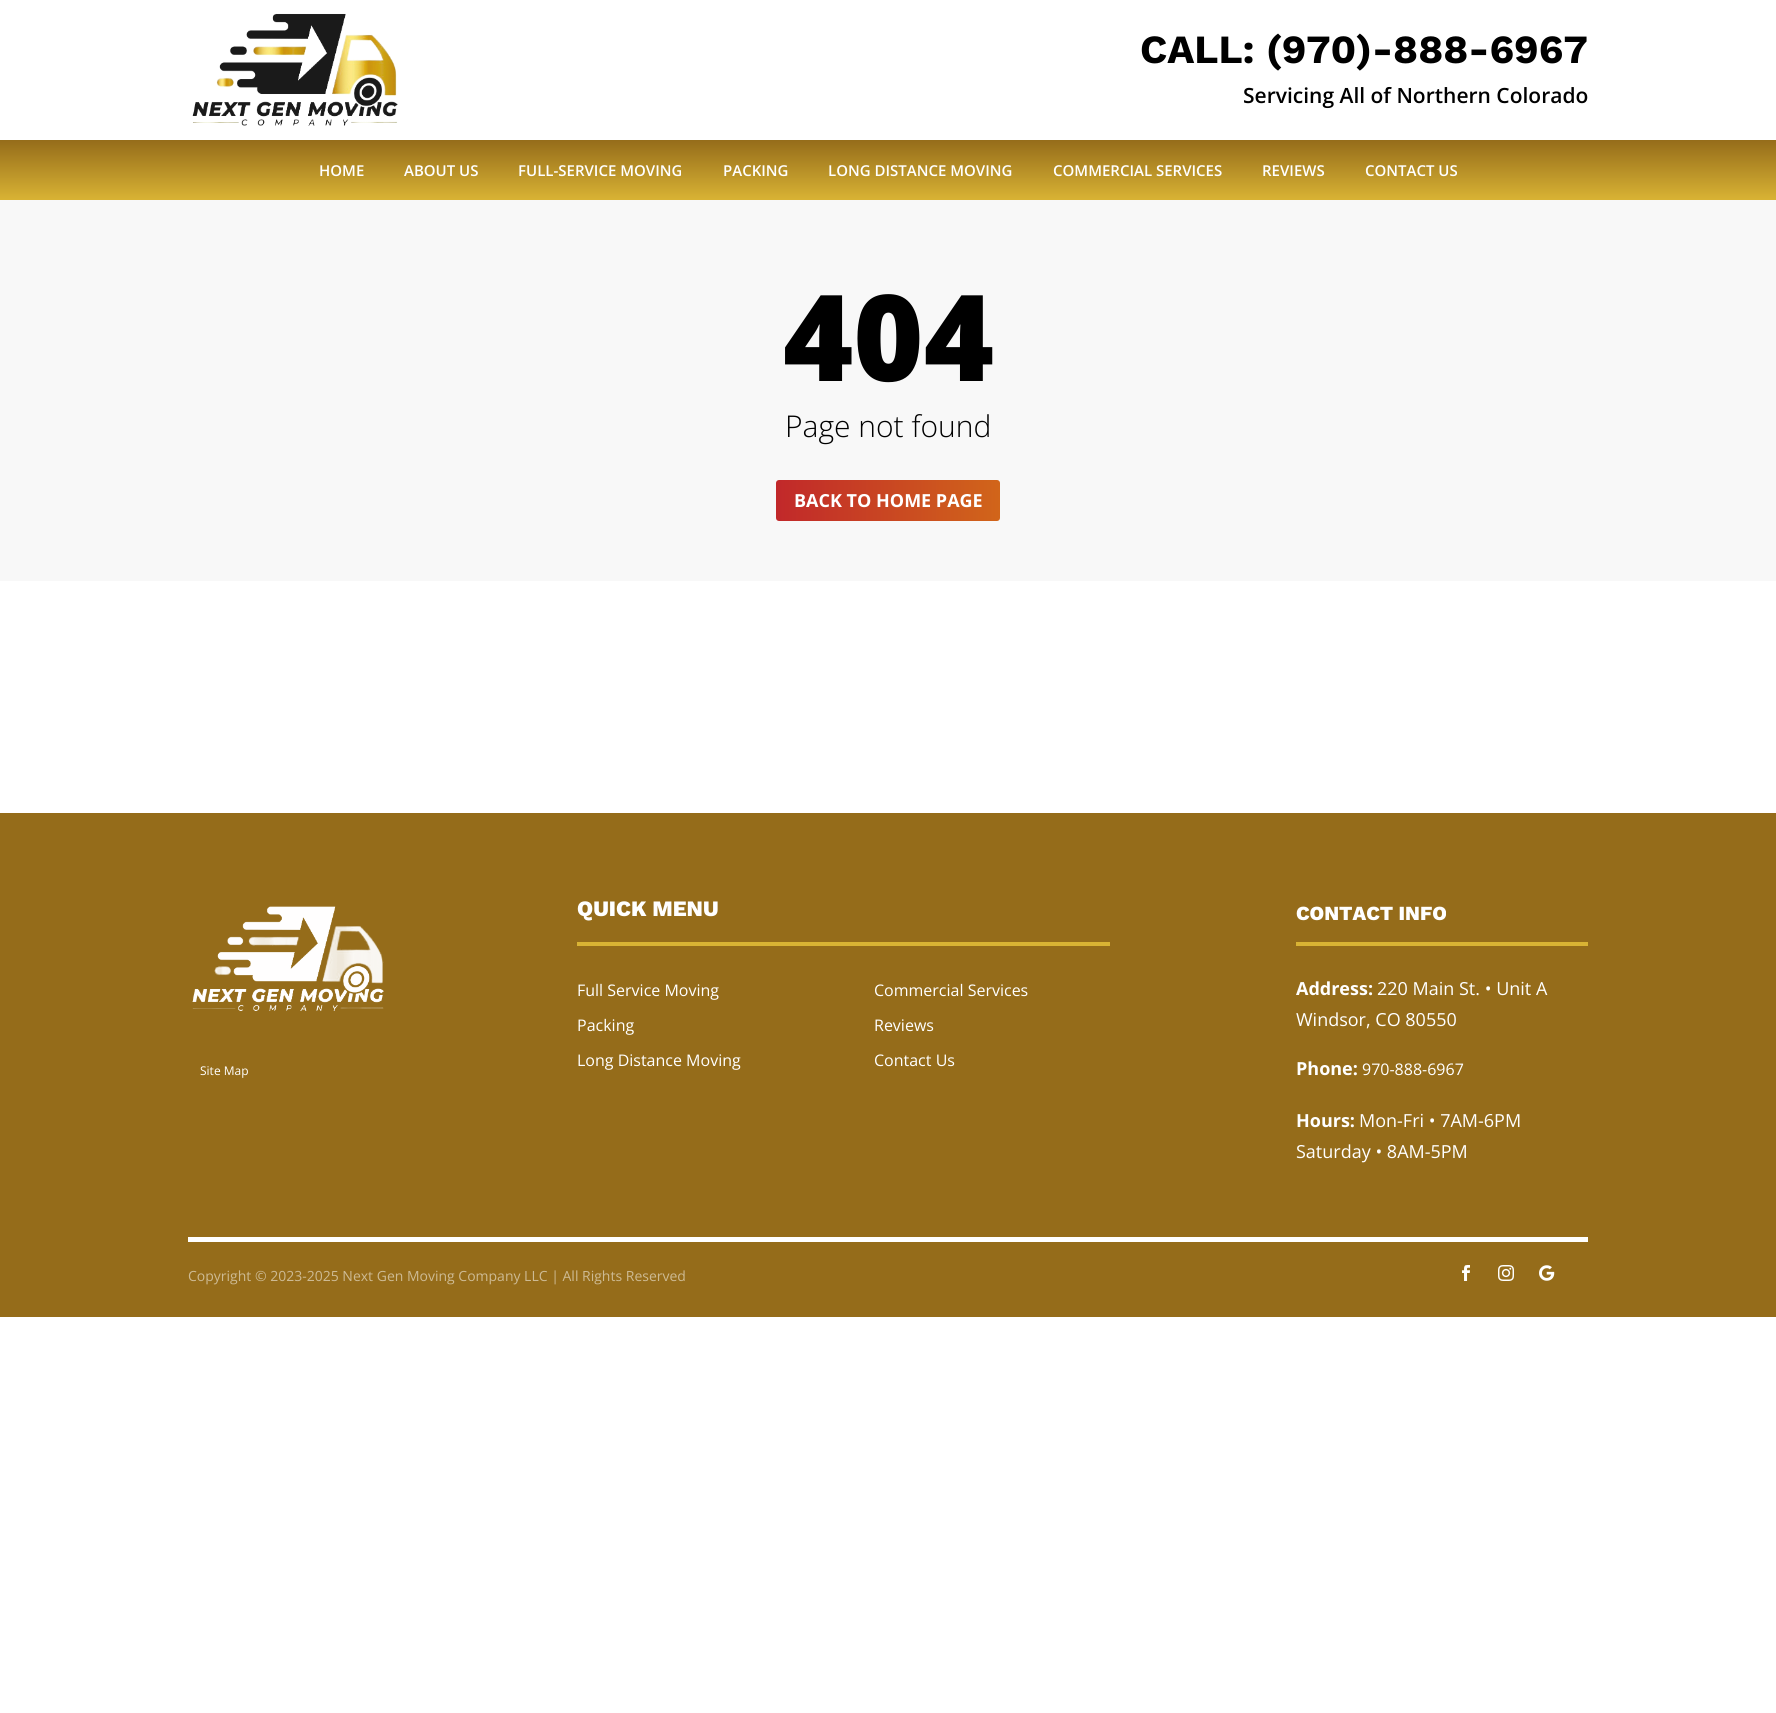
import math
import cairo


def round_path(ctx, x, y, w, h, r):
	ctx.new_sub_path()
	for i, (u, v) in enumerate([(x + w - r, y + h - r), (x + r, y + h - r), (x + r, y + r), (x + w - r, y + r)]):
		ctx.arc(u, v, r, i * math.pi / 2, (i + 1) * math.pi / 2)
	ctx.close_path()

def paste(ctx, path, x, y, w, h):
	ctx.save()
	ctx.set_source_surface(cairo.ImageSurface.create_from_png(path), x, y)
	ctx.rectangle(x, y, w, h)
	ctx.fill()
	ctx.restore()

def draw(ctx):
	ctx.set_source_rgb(1, 1, 1)
	ctx.paint()
	paste(ctx, 'media/1.png', 192, 13, 206, 113)
	ctx.select_font_face('Work Sans', cairo.FONT_SLANT_NORMAL, cairo.FONT_WEIGHT_BOLD)
	ctx.set_font_size(40)
	ctx.set_source_rgb(0, 0, 0)
	ctx.move_to(1140, 63)
	ctx.show_text('CALL: (970)-888-6967')
	ctx.select_font_face('Open Sans SemiBold')
	ctx.set_font_size(21)
	ctx.move_to(1243, 103)
	ctx.show_text('Servicing All of Northern Colorado')
	gradient = cairo.LinearGradient(888, 140, 888, 200)
	gradient.add_color_stop_rgba(0, 0.584, 0.424, 0.102, 1)
	gradient.add_color_stop_rgba(1, 0.851, 0.702, 0.204, 1)
	ctx.set_source(gradient)
	ctx.rectangle(0, 140, 1776, 60)
	ctx.fill()
	ctx.set_font_size(15)
	ctx.set_source_rgb(1, 1, 1)
	for x, y, s in [
		(319, 176, 'HOME'),
		(404, 176, 'ABOUT US'),
		(518, 176, 'FULL-SERVICE MOVING'),
		(723, 176, 'PACKING'),
		(828, 176, 'LONG DISTANCE MOVING'),
		(1053, 176, 'COMMERCIAL SERVICES'),
		(1262, 176, 'REVIEWS'),
		(1365, 176, 'CONTACT US'),
	]:
		ctx.move_to(x, y)
		ctx.show_text(s)
	ctx.set_source_rgb(0.969, 0.969, 0.969)
	ctx.rectangle(0, 200, 1776, 381)
	ctx.fill()
	ctx.select_font_face('Open Sans ExtraBold')
	ctx.set_font_size(120)
	ctx.set_source_rgb(0, 0, 0)
	ctx.move_to(783, 381)
	ctx.show_text('404')
	ctx.select_font_face('Open Sans Light')
	ctx.set_font_size(30)
	ctx.move_to(785, 437)
	ctx.show_text('Page not found')
	gradient = cairo.LinearGradient(776, 501, 1000, 501)
	gradient.add_color_stop_rgba(0, 0.757, 0.157, 0.165, 1)
	gradient.add_color_stop_rgba(1, 0.82, 0.396, 0.102, 1)
	ctx.set_source(gradient)
	round_path(ctx, 776, 480, 224, 41, 3)
	ctx.fill()
	ctx.select_font_face('Open Sans', cairo.FONT_SLANT_NORMAL, cairo.FONT_WEIGHT_BOLD)
	ctx.set_font_size(18)
	ctx.set_source_rgb(1, 1, 1)
	ctx.move_to(794, 507)
	ctx.show_text('BACK TO HOME PAGE')
	ctx.set_source_rgb(0.584, 0.424, 0.102)
	ctx.rectangle(0, 813, 1776, 504)
	ctx.fill()
	paste(ctx, 'media/2.png', 192, 906, 192, 105)
	ctx.select_font_face('Open Sans')
	ctx.set_font_size(12)
	ctx.set_source_rgb(1, 1, 1)
	ctx.move_to(200, 1075)
	ctx.show_text('Site Map')
	ctx.select_font_face('Work Sans ExtraBold')
	ctx.set_font_size(22)
	ctx.move_to(577, 916)
	ctx.show_text('QUICK MENU')
	ctx.set_source_rgb(0.851, 0.702, 0.204)
	ctx.rectangle(577, 942, 533, 4)
	ctx.fill()
	ctx.select_font_face('Open Sans')
	ctx.set_font_size(16)
	ctx.set_source_rgb(1, 1, 1)
	for x, y, s in [
		(577, 996, 'Full Service Moving'),
		(577, 1031, 'Packing'),
		(577, 1066, 'Long Distance Moving'),
		(874, 996, 'Commercial Services'),
		(874, 1031, 'Reviews'),
		(874, 1066, 'Contact Us'),
	]:
		ctx.move_to(x, y)
		ctx.show_text(s)
	ctx.select_font_face('Work Sans ExtraBold')
	ctx.set_font_size(20)
	ctx.move_to(1296, 920)
	ctx.show_text('CONTACT INFO')
	ctx.set_source_rgb(0.851, 0.702, 0.204)
	ctx.rectangle(1296, 942, 292, 4)
	ctx.fill()
	ctx.select_font_face('Open Sans', cairo.FONT_SLANT_NORMAL, cairo.FONT_WEIGHT_BOLD)
	ctx.set_font_size(18)
	ctx.set_source_rgb(1, 1, 1)
	ctx.move_to(1296, 995)
	ctx.show_text('Address:')
	ctx.select_font_face('Open Sans')
	ctx.move_to(1377, 995)
	ctx.show_text('220 Main St. • Unit A')
	ctx.move_to(1296, 1026)
	ctx.show_text('Windsor, CO 80550')
	ctx.select_font_face('Open Sans', cairo.FONT_SLANT_NORMAL, cairo.FONT_WEIGHT_BOLD)
	ctx.move_to(1296, 1075)
	ctx.show_text('Phone:')
	ctx.select_font_face('Open Sans')
	ctx.set_font_size(16)
	ctx.move_to(1362, 1075)
	ctx.show_text('970-888-6967')
	ctx.select_font_face('Open Sans', cairo.FONT_SLANT_NORMAL, cairo.FONT_WEIGHT_BOLD)
	ctx.set_font_size(18)
	ctx.move_to(1296, 1127)
	ctx.show_text('Hours:')
	ctx.select_font_face('Open Sans')
	ctx.move_to(1359, 1127)
	ctx.show_text('Mon-Fri • 7AM-6PM')
	ctx.move_to(1296, 1158)
	ctx.show_text('Saturday • 8AM-5PM')
	ctx.rectangle(188, 1237, 1400, 5)
	ctx.fill()
	ctx.set_font_size(14)
	ctx.set_source_rgb(0.804, 0.729, 0.576)
	ctx.move_to(188, 1281)
	ctx.show_text('Copyright © 2023-2025 Next Gen Moving Company LLC | All Rights Reserved')
	paste(ctx, 'media/3.png', 1462, 1265, 8, 16)
	paste(ctx, 'media/4.png', 1498, 1265, 16, 16)
	paste(ctx, 'media/5.png', 1539, 1265, 16, 16)


surface = cairo.ImageSurface(cairo.FORMAT_RGB24, 1776, 1713)
ctx = cairo.Context(surface)
options = cairo.FontOptions()
options.set_hint_metrics(cairo.HINT_METRICS_OFF)
options.set_hint_style(cairo.HINT_STYLE_NONE)
ctx.set_font_options(options)
ctx.set_miter_limit(4)
draw(ctx)
surface.write_to_png('image.png')
